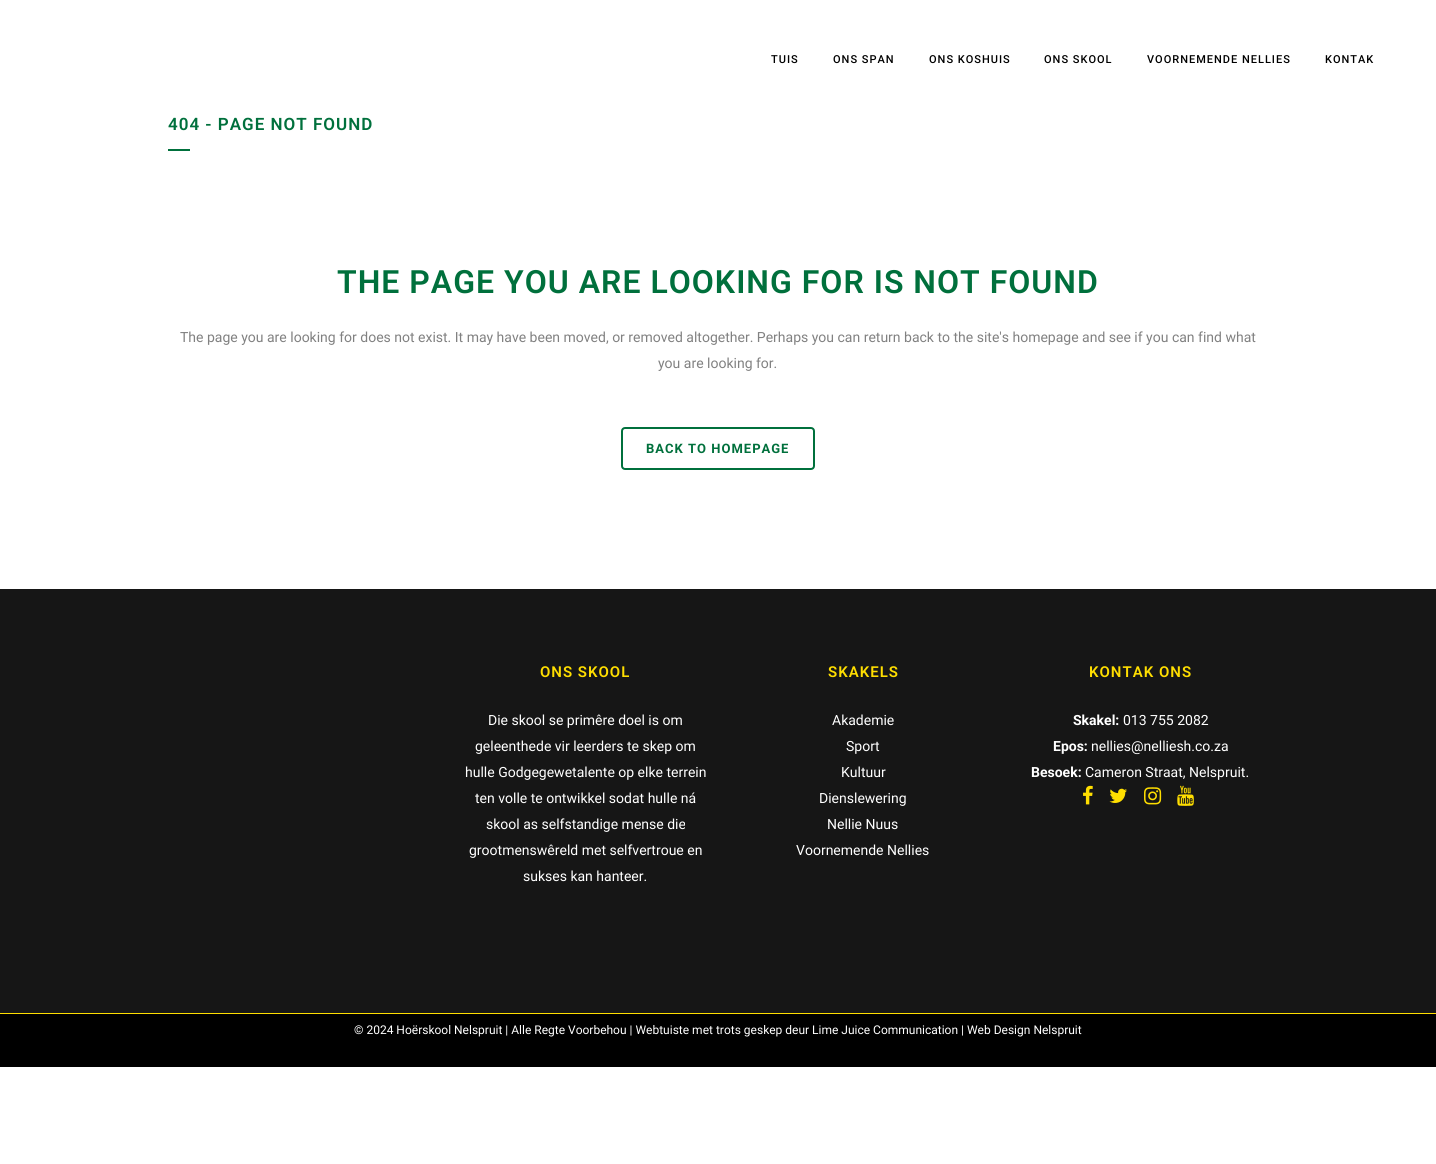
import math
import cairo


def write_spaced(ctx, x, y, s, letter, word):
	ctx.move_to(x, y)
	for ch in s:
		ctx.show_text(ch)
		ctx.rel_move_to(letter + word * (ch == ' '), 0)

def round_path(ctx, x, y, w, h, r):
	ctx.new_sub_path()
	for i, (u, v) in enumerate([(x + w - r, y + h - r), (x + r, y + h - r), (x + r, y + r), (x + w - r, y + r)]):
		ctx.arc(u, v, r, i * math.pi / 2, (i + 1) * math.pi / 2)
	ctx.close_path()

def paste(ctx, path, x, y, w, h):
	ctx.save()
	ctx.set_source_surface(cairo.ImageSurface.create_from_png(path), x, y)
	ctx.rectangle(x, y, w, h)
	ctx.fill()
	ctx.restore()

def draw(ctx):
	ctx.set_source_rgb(1, 1, 1)
	ctx.paint()
	ctx.select_font_face('Roboto Medium')
	ctx.set_font_size(11)
	ctx.set_source_rgb(0, 0, 0)
	for x, y, s in [
		(771, 63, 'TUIS'),
		(833, 63, 'ONS SPAN'),
		(929, 63, 'ONS KOSHUIS'),
		(1044, 63, 'ONS SKOOL'),
		(1147, 63, 'VOORNEMENDE NELLIES'),
		(1325, 63, 'KONTAK'),
	]:
		write_spaced(ctx, x, y, s, 1, 0)
	ctx.select_font_face('Roboto SemiBold')
	ctx.set_font_size(17)
	ctx.set_source_rgb(0, 0.439, 0.235)
	write_spaced(ctx, 168, 130, '404 - PAGE NOT FOUND', 1, 0)
	ctx.rectangle(168, 149, 22, 2)
	ctx.fill()
	ctx.set_font_size(32)
	write_spaced(ctx, 337, 293, 'THE PAGE YOU ARE LOOKING FOR IS NOT FOUND', 1, 0)
	ctx.select_font_face('Roboto')
	ctx.set_font_size(14)
	ctx.set_source_rgb(0.506, 0.506, 0.506)
	ctx.move_to(180, 342)
	ctx.show_text('The page you are looking for does not exist. It may have been moved, or removed altogether. Perhaps you can return back to the site\'s homepage and see if you can find what')
	ctx.move_to(658, 368)
	ctx.show_text('you are looking for.')
	round_path(ctx, 622, 428, 192, 41, 3)
	ctx.set_source_rgb(0, 0.439, 0.235)
	ctx.stroke()
	ctx.select_font_face('Roboto', cairo.FONT_SLANT_NORMAL, cairo.FONT_WEIGHT_BOLD)
	ctx.set_font_size(13)
	write_spaced(ctx, 646, 453, 'BACK TO HOMEPAGE', 1, 0)
	ctx.set_source_rgb(0.086, 0.086, 0.086)
	ctx.rectangle(0, 589, 1436, 424)
	ctx.fill()
	ctx.select_font_face('Roboto SemiBold')
	ctx.set_font_size(15)
	ctx.set_source_rgb(1, 0.871, 0)
	write_spaced(ctx, 540, 677, 'ONS SKOOL', 1, 0)
	ctx.select_font_face('Roboto')
	ctx.set_font_size(14)
	ctx.set_source_rgb(1, 1, 1)
	for x, y, s in [
		(488, 725, 'Die skool se primêre doel is om'),
		(475, 751, 'geleenthede vir leerders te skep om'),
		(465, 777, 'hulle Godgegewetalente op elke terrein'),
		(475, 803, 'ten volle te ontwikkel sodat hulle ná'),
		(486, 829, 'skool as selfstandige mense die'),
		(469, 855, 'grootmenswêreld met selfvertroue en'),
		(523, 881, 'sukses kan hanteer.'),
	]:
		ctx.move_to(x, y)
		ctx.show_text(s)
	ctx.select_font_face('Roboto SemiBold')
	ctx.set_font_size(15)
	ctx.set_source_rgb(1, 0.871, 0)
	write_spaced(ctx, 828, 677, 'SKAKELS', 1, 0)
	ctx.select_font_face('Roboto')
	ctx.set_font_size(14)
	ctx.set_source_rgb(1, 1, 1)
	for x, y, s in [
		(832, 725, 'Akademie'),
		(846, 751, 'Sport'),
		(841, 777, 'Kultuur'),
		(819, 803, 'Dienslewering'),
		(827, 829, 'Nellie Nuus'),
		(796, 855, 'Voornemende Nellies'),
	]:
		ctx.move_to(x, y)
		ctx.show_text(s)
	ctx.select_font_face('Roboto SemiBold')
	ctx.set_font_size(15)
	ctx.set_source_rgb(1, 0.871, 0)
	write_spaced(ctx, 1089, 677, 'KONTAK ONS', 1, 0)
	ctx.select_font_face('Roboto', cairo.FONT_SLANT_NORMAL, cairo.FONT_WEIGHT_BOLD)
	ctx.set_font_size(14)
	ctx.set_source_rgb(1, 1, 1)
	ctx.move_to(1073, 725)
	ctx.show_text('Skakel:')
	ctx.select_font_face('Roboto')
	ctx.move_to(1123, 725)
	ctx.show_text('013 755 2082')
	ctx.select_font_face('Roboto', cairo.FONT_SLANT_NORMAL, cairo.FONT_WEIGHT_BOLD)
	ctx.move_to(1053, 751)
	ctx.show_text('Epos:')
	ctx.select_font_face('Roboto')
	ctx.move_to(1091, 751)
	ctx.show_text('nellies@nelliesh.co.za')
	ctx.select_font_face('Roboto', cairo.FONT_SLANT_NORMAL, cairo.FONT_WEIGHT_BOLD)
	ctx.move_to(1031, 777)
	ctx.show_text('Besoek:')
	ctx.select_font_face('Roboto')
	ctx.move_to(1085, 777)
	ctx.show_text('Cameron Straat, Nelspruit.')
	paste(ctx, 'media/1.png', 1083, 785, 10, 20)
	paste(ctx, 'media/2.png', 1109, 788, 18, 15)
	paste(ctx, 'media/3.png', 1144, 787, 18, 18)
	paste(ctx, 'media/4.png', 1177, 785, 17, 21)
	ctx.set_source_rgb(0, 0, 0)
	ctx.rectangle(0, 1014, 1436, 53)
	ctx.fill()
	ctx.set_source_rgb(1, 0.871, 0)
	ctx.rectangle(0, 1013, 1436, 1)
	ctx.fill()
	ctx.set_font_size(12)
	ctx.set_source_rgb(1, 1, 1)
	ctx.move_to(354, 1034)
	ctx.show_text('© 2024 Hoërskool Nelspruit | Alle Regte Voorbehou | Webtuiste met trots geskep deur Lime Juice Communication | Web Design Nelspruit')


surface = cairo.ImageSurface(cairo.FORMAT_RGB24, 1436, 1164)
ctx = cairo.Context(surface)
options = cairo.FontOptions()
options.set_hint_metrics(cairo.HINT_METRICS_OFF)
options.set_hint_style(cairo.HINT_STYLE_NONE)
ctx.set_font_options(options)
ctx.set_miter_limit(4)
draw(ctx)
surface.write_to_png('image.png')
